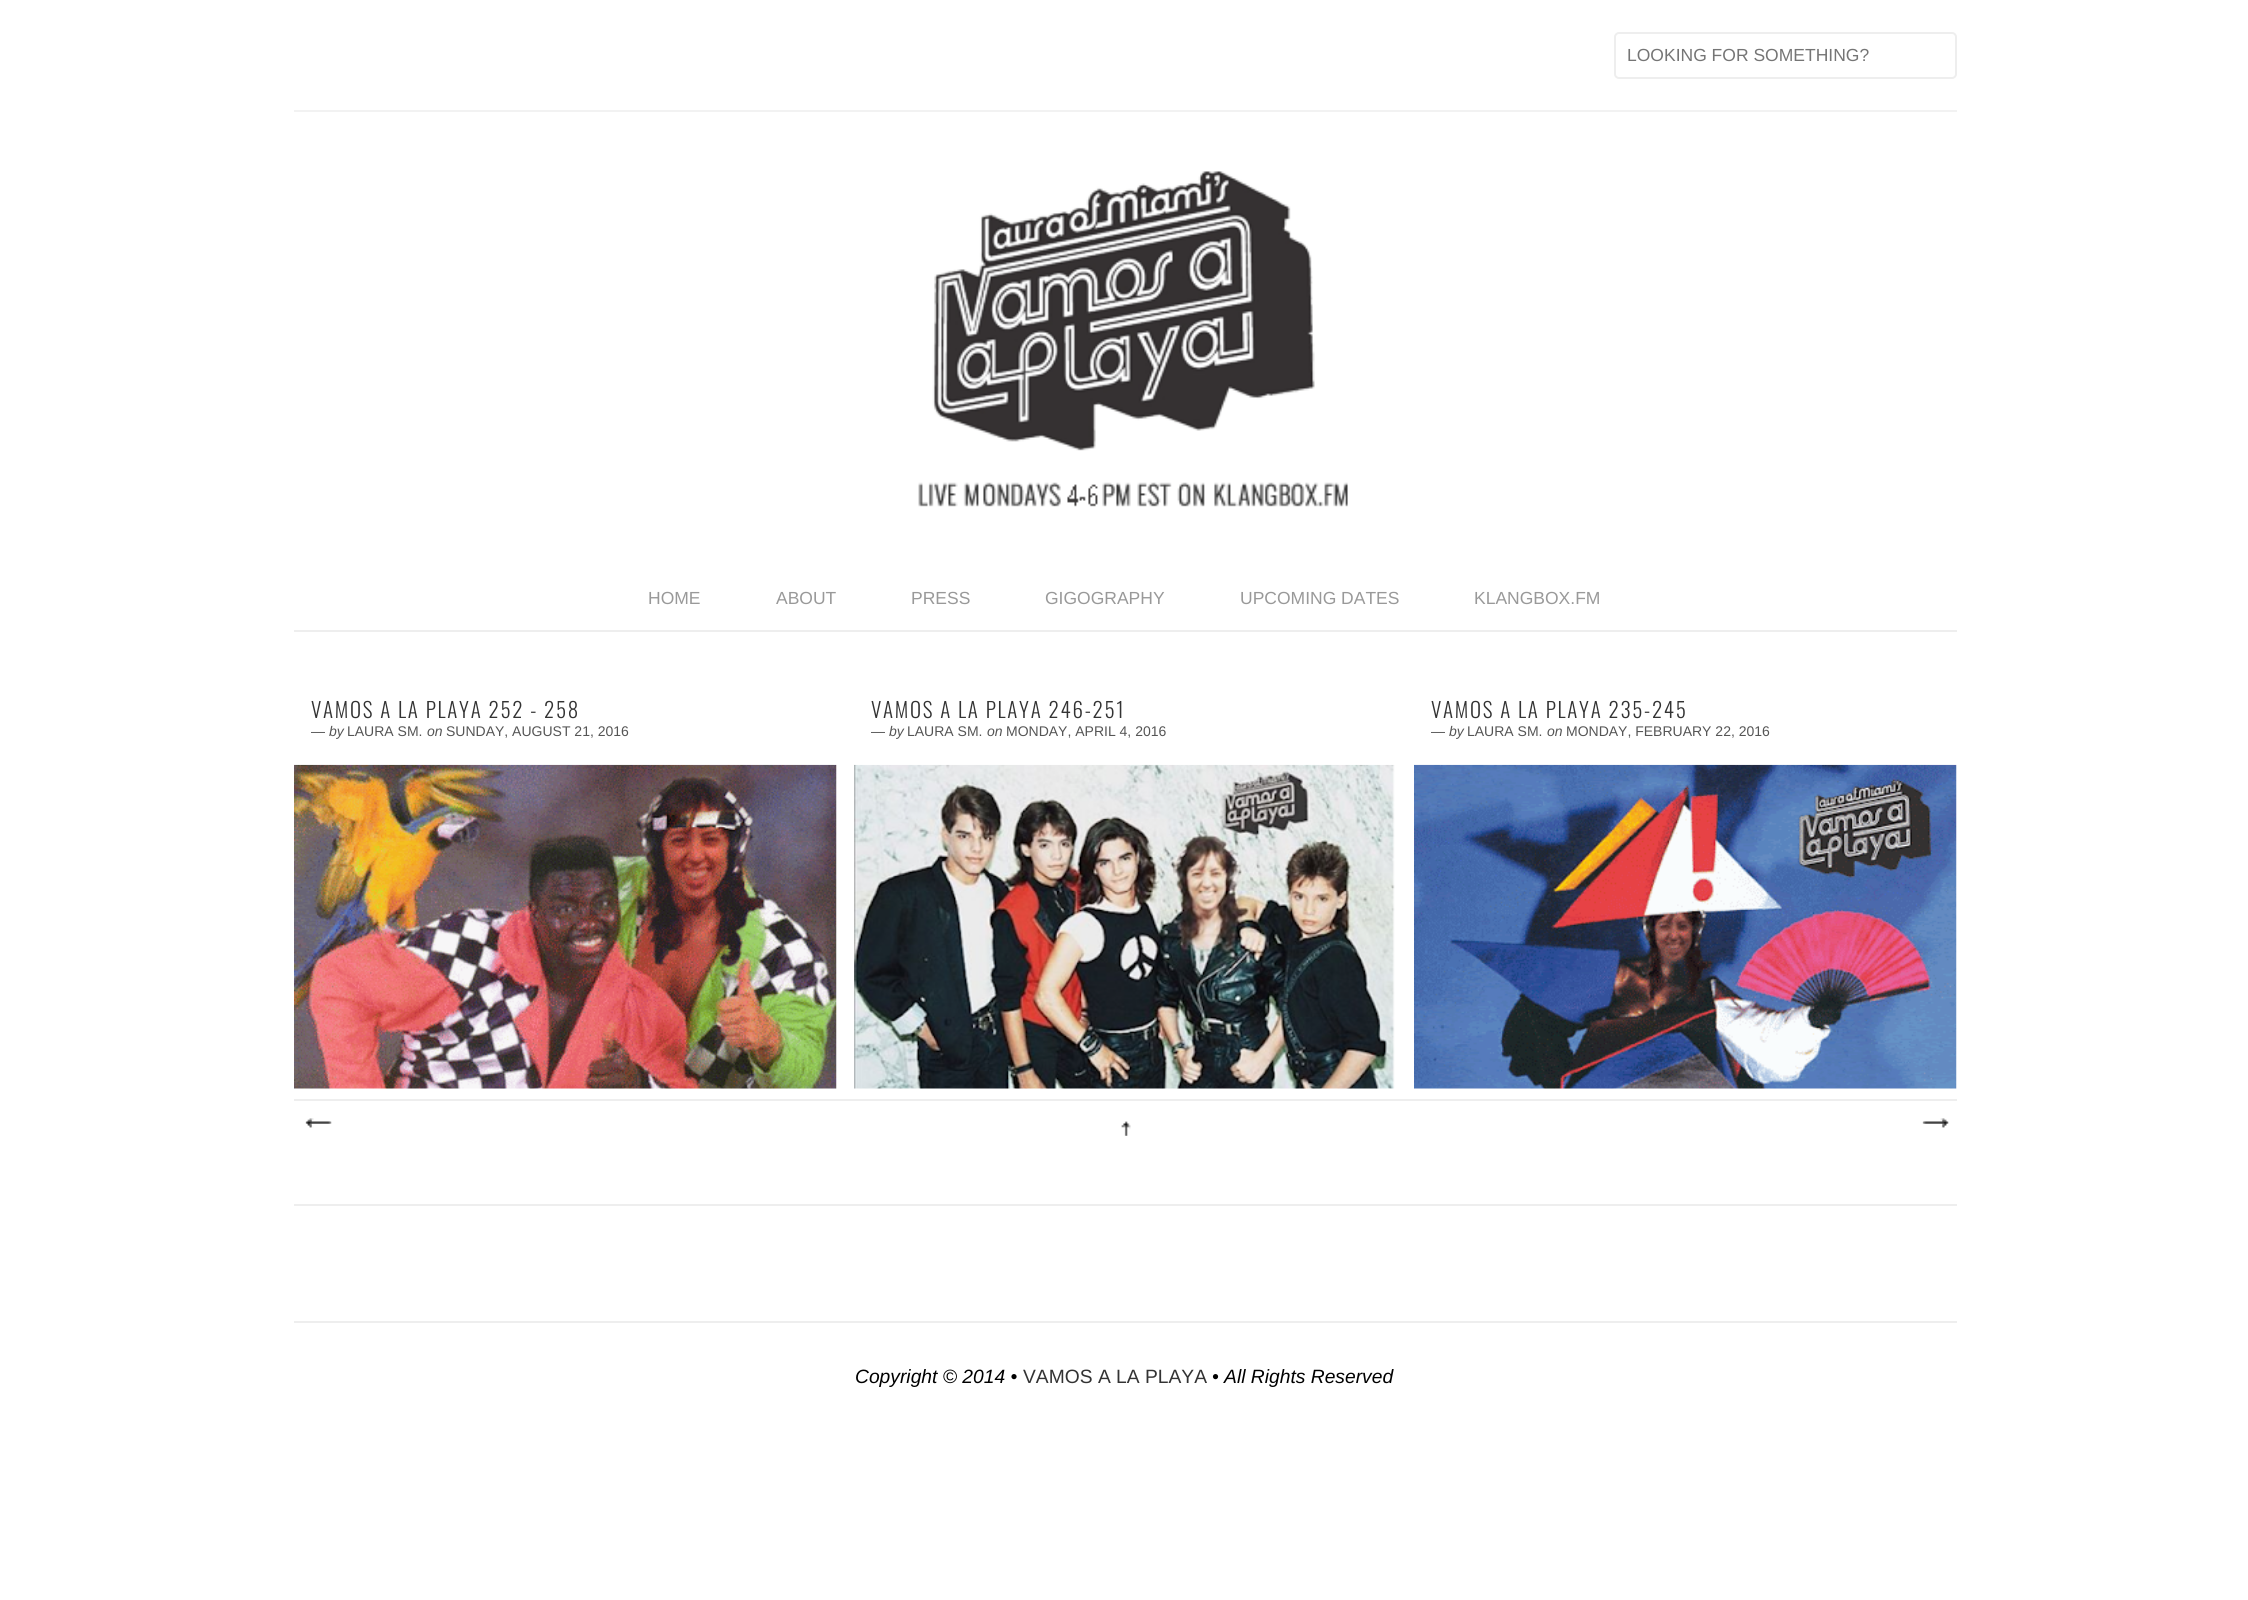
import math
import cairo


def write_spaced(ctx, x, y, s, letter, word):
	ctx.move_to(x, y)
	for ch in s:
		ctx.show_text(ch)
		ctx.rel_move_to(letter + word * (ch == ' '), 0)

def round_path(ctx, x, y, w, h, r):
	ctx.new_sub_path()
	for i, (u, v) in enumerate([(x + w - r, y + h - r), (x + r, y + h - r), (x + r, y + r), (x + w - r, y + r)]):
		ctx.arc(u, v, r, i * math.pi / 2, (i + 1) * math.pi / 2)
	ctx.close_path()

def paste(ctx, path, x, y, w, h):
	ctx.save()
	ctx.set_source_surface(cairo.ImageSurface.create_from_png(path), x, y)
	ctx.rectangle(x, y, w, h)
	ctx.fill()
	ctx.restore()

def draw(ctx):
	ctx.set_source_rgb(1, 1, 1)
	ctx.paint()
	ctx.set_source_rgb(0.949, 0.949, 0.949)
	ctx.rectangle(294, 110, 1663, 2)
	ctx.fill()
	round_path(ctx, 1615, 33, 341, 45, 4)
	ctx.set_source_rgb(0.933, 0.933, 0.933)
	ctx.stroke()
	ctx.select_font_face('Liberation Sans')
	ctx.set_font_size(17.5)
	ctx.set_source_rgb(0.459, 0.459, 0.459)
	ctx.move_to(1627, 61)
	ctx.show_text('LOOKING FOR SOMETHING?')
	paste(ctx, 'media/1.png', 918, 170, 430, 337)
	ctx.set_source_rgb(0.933, 0.933, 0.933)
	ctx.rectangle(294, 630, 1663, 2)
	ctx.fill()
	ctx.set_source_rgb(0.6, 0.6, 0.6)
	for x, y, s in [
		(648, 604, 'HOME'),
		(776, 604, 'ABOUT'),
		(911, 604, 'PRESS'),
		(1045, 604, 'GIGOGRAPHY'),
		(1240, 604, 'UPCOMING DATES'),
		(1474, 604, 'KLANGBOX.FM'),
	]:
		ctx.move_to(x, y)
		ctx.show_text(s)
	ctx.select_font_face('Oswald Light')
	ctx.set_font_size(21)
	ctx.set_source_rgb(0.2, 0.2, 0.2)
	write_spaced(ctx, 311, 718, 'VAMOS A LA PLAYA 252 - 258', 1.75, 0)
	ctx.select_font_face('Liberation Sans')
	ctx.set_font_size(14)
	ctx.set_source_rgb(0.333, 0.333, 0.333)
	ctx.move_to(311, 736)
	ctx.show_text('—')
	ctx.select_font_face('Liberation Sans', cairo.FONT_SLANT_ITALIC)
	ctx.move_to(329, 736)
	ctx.show_text('by')
	ctx.select_font_face('Liberation Sans')
	ctx.move_to(347, 736)
	ctx.show_text('LAURA SM.')
	ctx.select_font_face('Liberation Sans', cairo.FONT_SLANT_ITALIC)
	ctx.move_to(427, 736)
	ctx.show_text('on')
	ctx.select_font_face('Liberation Sans')
	ctx.move_to(446, 736)
	ctx.show_text('SUNDAY, AUGUST 21, 2016')
	paste(ctx, 'media/2.png', 294, 764, 543, 325)
	ctx.select_font_face('Oswald Light')
	ctx.set_font_size(21)
	ctx.set_source_rgb(0.2, 0.2, 0.2)
	write_spaced(ctx, 871, 718, 'VAMOS A LA PLAYA 246-251', 1.75, 0)
	ctx.select_font_face('Liberation Sans')
	ctx.set_font_size(14)
	ctx.set_source_rgb(0.333, 0.333, 0.333)
	ctx.move_to(871, 736)
	ctx.show_text('—')
	ctx.select_font_face('Liberation Sans', cairo.FONT_SLANT_ITALIC)
	ctx.move_to(889, 736)
	ctx.show_text('by')
	ctx.select_font_face('Liberation Sans')
	ctx.move_to(907, 736)
	ctx.show_text('LAURA SM.')
	ctx.select_font_face('Liberation Sans', cairo.FONT_SLANT_ITALIC)
	ctx.move_to(987, 736)
	ctx.show_text('on')
	ctx.select_font_face('Liberation Sans')
	ctx.move_to(1006, 736)
	ctx.show_text('MONDAY, APRIL 4, 2016')
	paste(ctx, 'media/3.png', 854, 764, 541, 325)
	ctx.select_font_face('Oswald Light')
	ctx.set_font_size(21)
	ctx.set_source_rgb(0.2, 0.2, 0.2)
	write_spaced(ctx, 1431, 718, 'VAMOS A LA PLAYA 235-245', 1.75, 0)
	ctx.select_font_face('Liberation Sans')
	ctx.set_font_size(14)
	ctx.set_source_rgb(0.333, 0.333, 0.333)
	ctx.move_to(1431, 736)
	ctx.show_text('—')
	ctx.select_font_face('Liberation Sans', cairo.FONT_SLANT_ITALIC)
	ctx.move_to(1449, 736)
	ctx.show_text('by')
	ctx.select_font_face('Liberation Sans')
	ctx.move_to(1467, 736)
	ctx.show_text('LAURA SM.')
	ctx.select_font_face('Liberation Sans', cairo.FONT_SLANT_ITALIC)
	ctx.move_to(1547, 736)
	ctx.show_text('on')
	ctx.select_font_face('Liberation Sans')
	ctx.move_to(1566, 736)
	ctx.show_text('MONDAY, FEBRUARY 22, 2016')
	paste(ctx, 'media/4.png', 1414, 764, 543, 325)
	ctx.set_source_rgb(0.933, 0.933, 0.933)
	ctx.rectangle(294, 1099, 1663, 2)
	ctx.fill()
	paste(ctx, 'media/5.png', 305, 1118, 27, 10)
	paste(ctx, 'media/6.png', 305, 1118, 27, 10)
	paste(ctx, 'media/7.png', 1121, 1121, 10, 15)
	paste(ctx, 'media/8.png', 1922, 1118, 27, 10)
	paste(ctx, 'media/9.png', 1922, 1118, 27, 10)
	ctx.rectangle(294, 1204, 1663, 2)
	ctx.fill()
	ctx.rectangle(294, 1321, 1663, 2)
	ctx.fill()
	ctx.select_font_face('Liberation Sans', cairo.FONT_SLANT_ITALIC)
	ctx.set_font_size(19.25)
	ctx.set_source_rgb(0, 0, 0)
	ctx.move_to(855, 1383)
	ctx.show_text('Copyright © 2014 •')
	ctx.select_font_face('Liberation Sans')
	ctx.set_source_rgb(0.2, 0.2, 0.2)
	ctx.move_to(1023, 1383)
	ctx.show_text('VAMOS A LA PLAYA')
	ctx.select_font_face('Liberation Sans', cairo.FONT_SLANT_ITALIC)
	ctx.set_source_rgb(0, 0, 0)
	ctx.move_to(1212, 1383)
	ctx.show_text('• All Rights Reserved')


surface = cairo.ImageSurface(cairo.FORMAT_RGB24, 2248, 1600)
ctx = cairo.Context(surface)
options = cairo.FontOptions()
options.set_hint_metrics(cairo.HINT_METRICS_OFF)
options.set_hint_style(cairo.HINT_STYLE_NONE)
ctx.set_font_options(options)
ctx.set_miter_limit(4)
draw(ctx)
surface.write_to_png('image.png')
